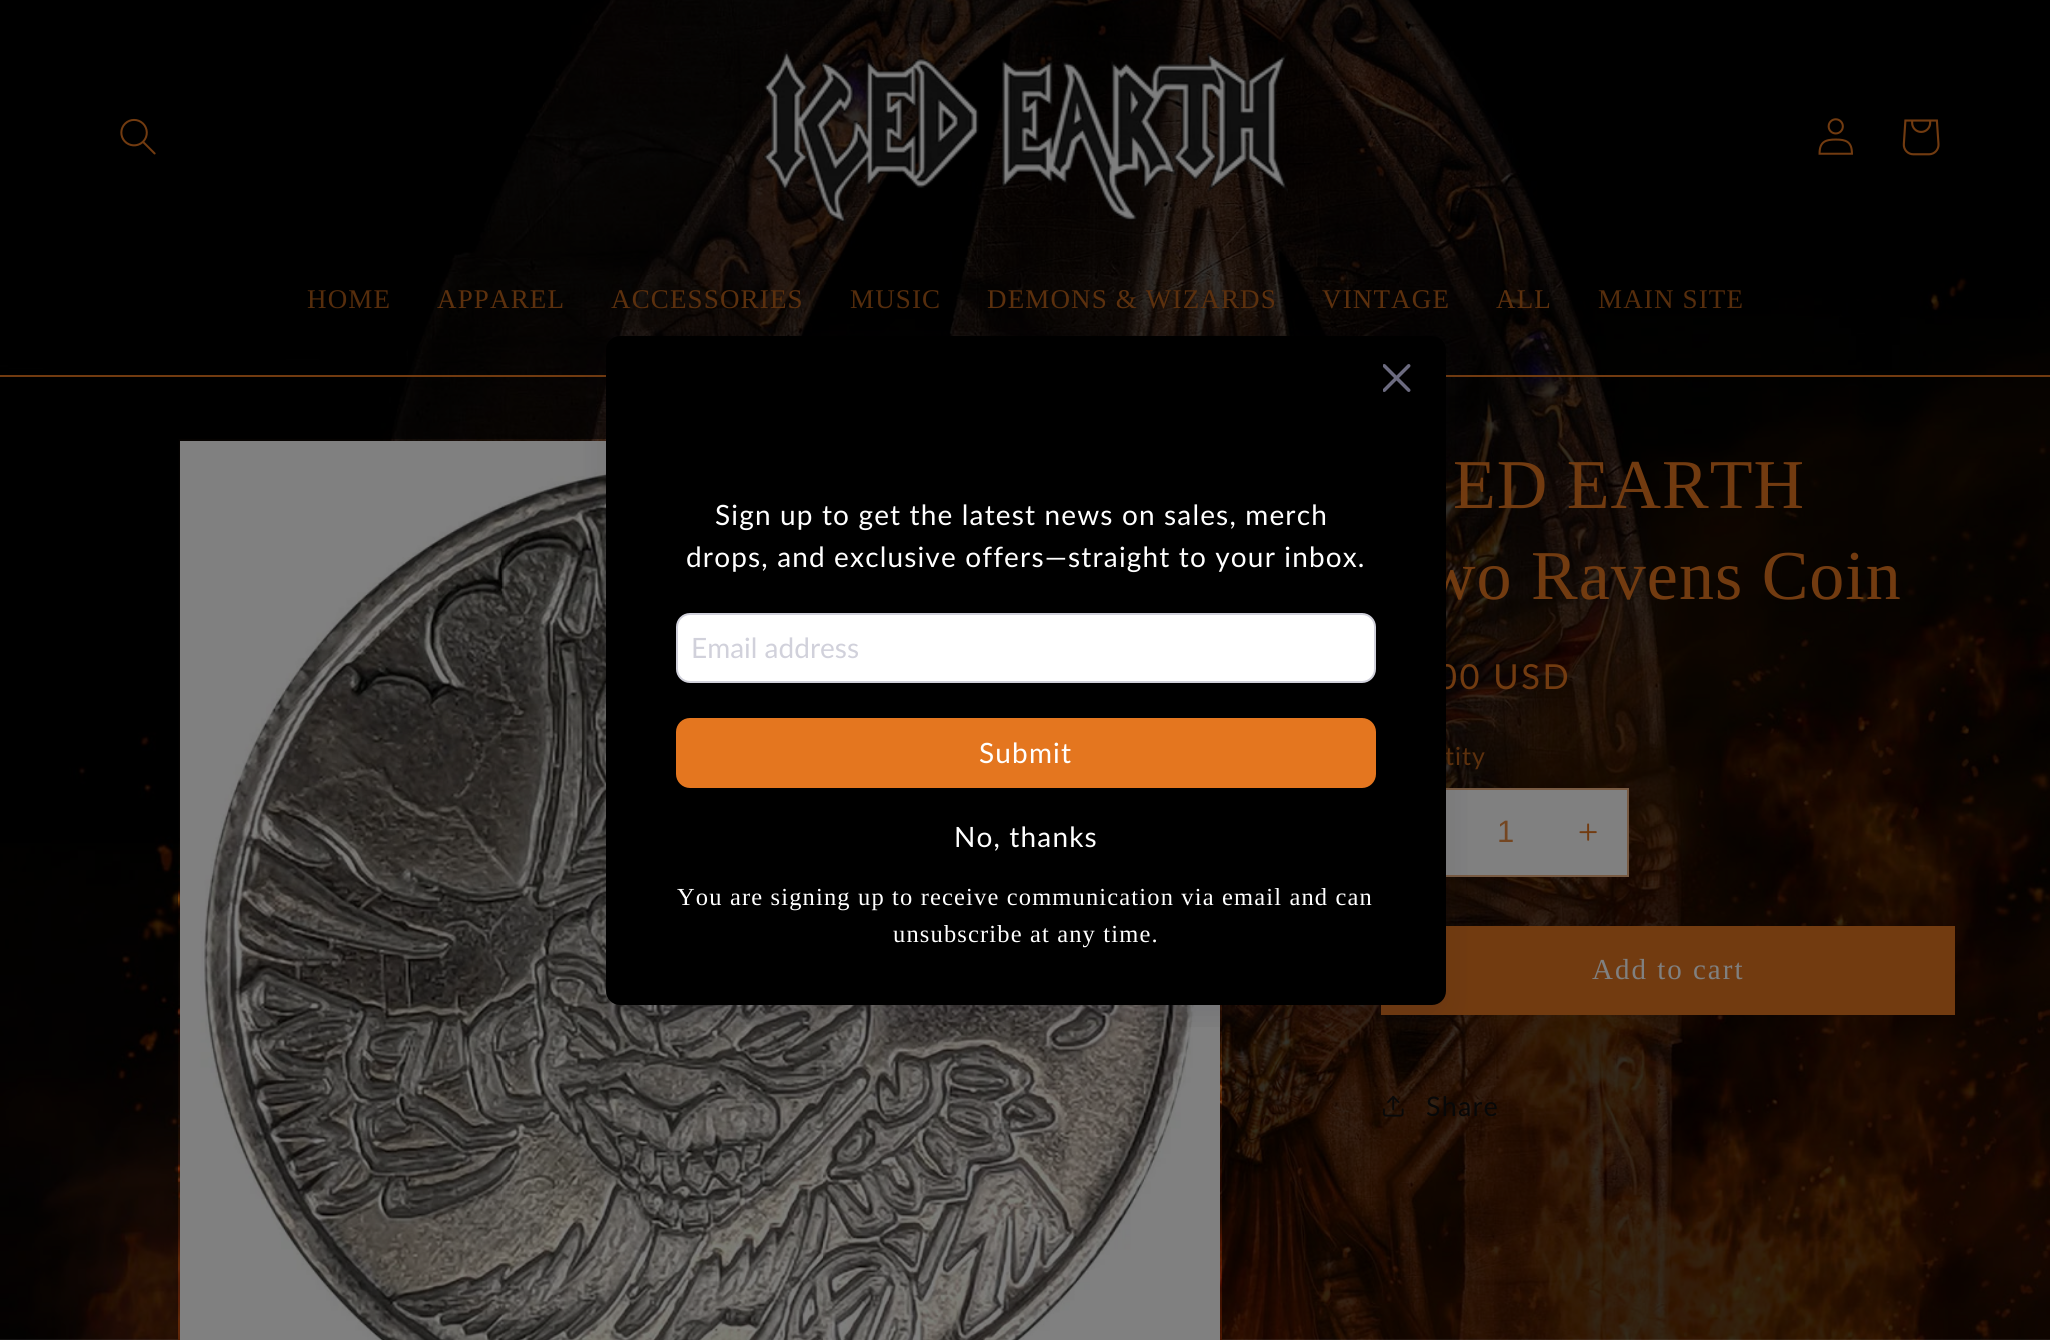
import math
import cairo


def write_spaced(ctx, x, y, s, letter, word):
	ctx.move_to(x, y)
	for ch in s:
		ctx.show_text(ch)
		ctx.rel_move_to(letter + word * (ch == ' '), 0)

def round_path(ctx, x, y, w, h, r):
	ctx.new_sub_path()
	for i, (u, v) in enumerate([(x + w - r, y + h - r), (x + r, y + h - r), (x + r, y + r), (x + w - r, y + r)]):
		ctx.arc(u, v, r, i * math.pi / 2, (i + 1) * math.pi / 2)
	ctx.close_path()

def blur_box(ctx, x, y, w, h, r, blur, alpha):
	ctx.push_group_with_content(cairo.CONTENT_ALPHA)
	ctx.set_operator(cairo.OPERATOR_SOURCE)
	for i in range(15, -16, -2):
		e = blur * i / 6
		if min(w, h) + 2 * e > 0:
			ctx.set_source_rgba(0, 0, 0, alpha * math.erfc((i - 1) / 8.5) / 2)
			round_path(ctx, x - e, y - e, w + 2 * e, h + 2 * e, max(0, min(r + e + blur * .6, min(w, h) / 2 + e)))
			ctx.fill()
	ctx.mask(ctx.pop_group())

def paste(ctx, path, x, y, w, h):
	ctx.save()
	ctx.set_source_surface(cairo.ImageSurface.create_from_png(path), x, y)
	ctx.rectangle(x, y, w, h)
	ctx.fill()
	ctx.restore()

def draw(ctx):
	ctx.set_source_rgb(1, 1, 1)
	ctx.paint()
	paste(ctx, 'media/1.png', 0, 0, 2050, 1340)
	paste(ctx, 'media/2.png', 407, 0, 1643, 375)
	ctx.set_source_rgba(0, 0, 0, 0.6)
	ctx.rectangle(408, 0, 1642, 375)
	ctx.fill()
	ctx.set_source_rgb(0.447, 0.231, 0.063)
	ctx.rectangle(0, 375, 2050, 2)
	ctx.fill()
	paste(ctx, 'media/3.png', 120, 118, 36, 37)
	paste(ctx, 'media/4.png', 763, 49, 525, 175)
	paste(ctx, 'media/5.png', 1818, 118, 35, 37)
	paste(ctx, 'media/6.png', 1902, 119, 38, 37)
	ctx.select_font_face('Liberation Serif')
	ctx.set_font_size(27)
	ctx.set_source_rgb(0.337, 0.176, 0.047)
	write_spaced(ctx, 307, 308, 'HOME', 1.15, 0)
	ctx.set_source_rgb(0.361, 0.188, 0.051)
	write_spaced(ctx, 437, 308, 'APPAREL', 1.15, 0)
	write_spaced(ctx, 611, 308, 'ACCESSORIES', 1.15, 0)
	ctx.set_source_rgb(0.337, 0.176, 0.047)
	write_spaced(ctx, 850, 308, 'MUSIC', 1.15, 0)
	ctx.set_source_rgb(0.361, 0.188, 0.051)
	for x, y, s in [
		(987, 308, 'DEMONS & WIZARDS'),
		(1322, 308, 'VINTAGE'),
		(1496, 308, 'ALL'),
	]:
		write_spaced(ctx, x, y, s, 1.15, 0)
	ctx.set_source_rgb(0.337, 0.176, 0.047)
	write_spaced(ctx, 1598, 308, 'MAIN SITE', 1.15, 0)
	paste(ctx, 'media/8.png', 178, 439, 1044, 901)
	ctx.rectangle(180, 440, 1041, 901)
	ctx.set_source_rgba(0.447, 0.231, 0.063, 0.05)
	ctx.stroke()
	paste(ctx, 'media/9.png', 180, 441, 1040, 899)
	ctx.set_source_rgb(0.502, 0.502, 0.502)
	ctx.rectangle(1446, 790, 181, 85)
	ctx.fill()
	paste(ctx, 'media/10.png', 1579, 823, 18, 18)
	ctx.rectangle(1382, 789, 246, 87)
	ctx.set_source_rgb(0.471, 0.353, 0.259)
	ctx.stroke()
	ctx.set_source_rgb(0.447, 0.231, 0.063)
	ctx.rectangle(1381, 926, 574, 89)
	ctx.fill()
	ctx.save()
	ctx.rectangle(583, 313, 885, 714)
	ctx.clip()
	ctx.set_source_rgb(0.071, 0.067, 0.153)
	blur_box(ctx, 606, 350, 840, 669, 14, 17.5, 0.1)
	ctx.restore()
	ctx.set_font_size(70)
	write_spaced(ctx, 1425, 599, 'wo Ravens Coin', 1, 0)
	ctx.select_font_face('Lato')
	ctx.set_font_size(34.5)
	write_spaced(ctx, 1437, 689, '00 USD', 2.5, 0)
	ctx.set_font_size(25)
	ctx.set_source_rgb(0.361, 0.188, 0.051)
	write_spaced(ctx, 1445, 765, 'tity', 1, 0)
	ctx.set_source_rgb(0, 0, 0)
	round_path(ctx, 606, 336, 840, 669, 14)
	ctx.fill()
	paste(ctx, 'media/7.png', 1383, 364, 28, 28)
	ctx.set_font_size(28)
	ctx.set_source_rgb(1, 1, 1)
	write_spaced(ctx, 715, 525, 'Sign up to get the latest news on sales, merch', 1.15, 0)
	write_spaced(ctx, 686, 567, 'drops, and exclusive offers—straight to your inbox.', 1.15, 0)
	round_path(ctx, 677, 614, 698, 68, 13)
	ctx.fill_preserve()
	ctx.set_source_rgb(0.82, 0.82, 0.859)
	ctx.stroke()
	ctx.move_to(691, 658)
	ctx.show_text('Email address')
	ctx.set_source_rgb(0.894, 0.463, 0.122)
	round_path(ctx, 676, 718, 700, 70, 14)
	ctx.fill()
	ctx.set_source_rgb(1, 1, 1)
	write_spaced(ctx, 979, 763, 'Submit', 1.15, 0)
	write_spaced(ctx, 954, 847, 'No, thanks', 1.15, 0)
	ctx.select_font_face('Liberation Serif')
	ctx.set_font_size(24.5)
	write_spaced(ctx, 677, 905, 'You are signing up to receive communication via email and can', 1.15, 0)
	write_spaced(ctx, 893, 942, 'unsubscribe at any time.', 1.15, 0)
	ctx.set_font_size(70)
	ctx.set_source_rgb(0.447, 0.231, 0.063)
	write_spaced(ctx, 1453, 508, 'ED EARTH', 1, 0)
	ctx.select_font_face('Liberation Sans')
	ctx.set_font_size(31)
	ctx.set_source_rgb(0.455, 0.275, 0.129)
	ctx.move_to(1497, 842)
	ctx.show_text('1')
	ctx.select_font_face('Liberation Serif')
	ctx.set_font_size(29)
	ctx.set_source_rgb(0.502, 0.502, 0.502)
	write_spaced(ctx, 1592, 979, 'Add to cart', 2, 0)
	paste(ctx, 'media/11.png', 1383, 1096, 21, 21)
	ctx.select_font_face('Lato')
	ctx.set_font_size(27)
	ctx.set_source_rgb(0.035, 0.035, 0.035)
	write_spaced(ctx, 1426, 1116, 'Share', 1.15, 0)


surface = cairo.ImageSurface(cairo.FORMAT_RGB24, 2050, 1340)
ctx = cairo.Context(surface)
options = cairo.FontOptions()
options.set_hint_metrics(cairo.HINT_METRICS_OFF)
options.set_hint_style(cairo.HINT_STYLE_NONE)
ctx.set_font_options(options)
ctx.set_miter_limit(4)
draw(ctx)
surface.write_to_png('image.png')
